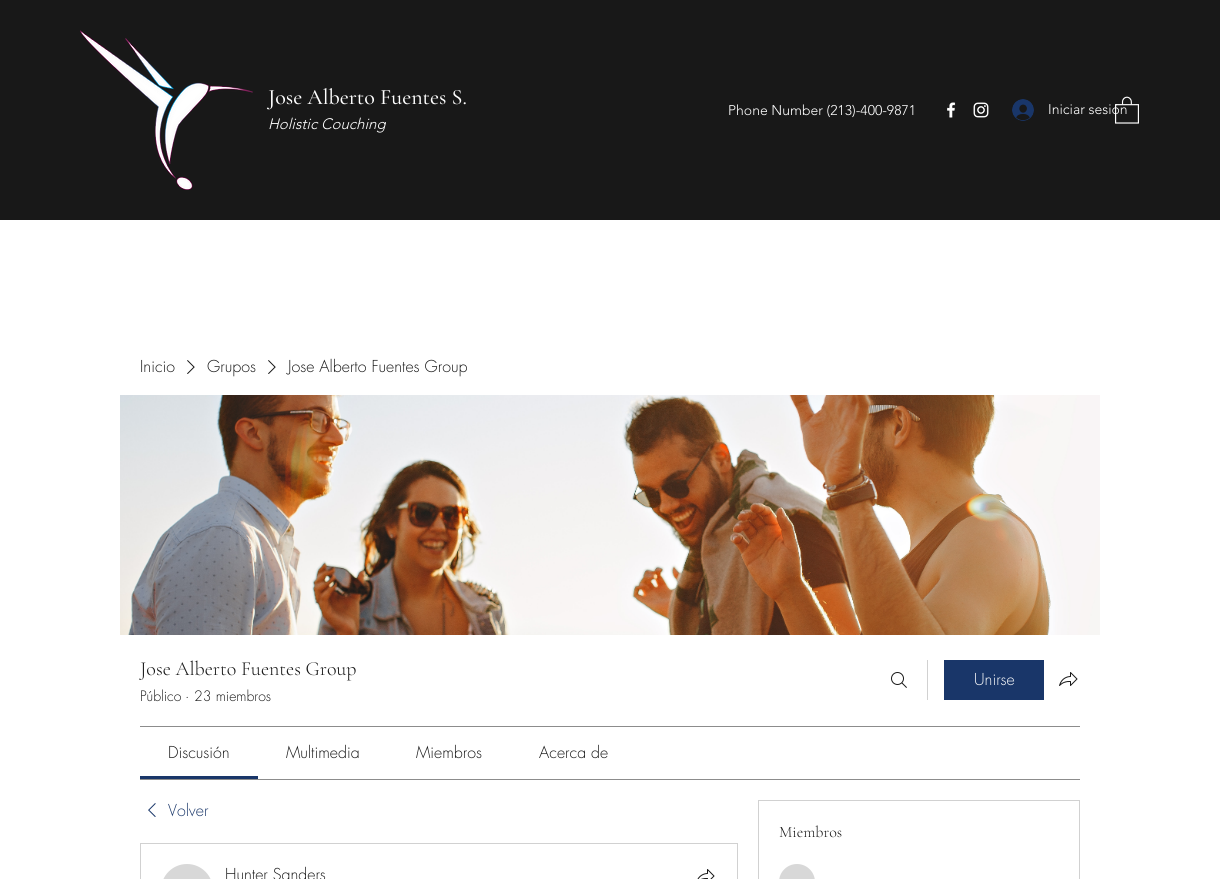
import math
import cairo


def round_path(ctx, x, y, w, h, r):
	ctx.new_sub_path()
	for i, (u, v) in enumerate([(x + w - r, y + h - r), (x + r, y + h - r), (x + r, y + r), (x + w - r, y + r)]):
		ctx.arc(u, v, r, i * math.pi / 2, (i + 1) * math.pi / 2)
	ctx.close_path()

def paste(ctx, path, x, y, w, h):
	ctx.save()
	ctx.set_source_surface(cairo.ImageSurface.create_from_png(path), x, y)
	ctx.rectangle(x, y, w, h)
	ctx.fill()
	ctx.restore()

def draw(ctx):
	ctx.set_source_rgb(1, 1, 1)
	ctx.paint()
	ctx.set_source_rgb(0.094, 0.094, 0.094)
	ctx.rectangle(0, 0, 1220, 220)
	ctx.fill()
	paste(ctx, 'media/1.png', 80, 30, 173, 160)
	ctx.select_font_face('Cormorant Garamond Medium')
	ctx.set_font_size(22)
	ctx.set_source_rgb(1, 1, 1)
	ctx.move_to(268, 104)
	ctx.show_text('Jose Alberto Fuentes S.')
	ctx.select_font_face('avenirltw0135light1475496 Light', cairo.FONT_SLANT_ITALIC)
	ctx.set_font_size(15)
	ctx.move_to(268, 129)
	ctx.show_text('Holistic Couching')
	ctx.select_font_face('avenirltw0135light1475496 Light')
	ctx.set_font_size(14)
	ctx.move_to(728, 115)
	ctx.show_text('Phone Number (213)-400-9871')
	paste(ctx, 'media/2.png', 947, 102, 9, 16)
	paste(ctx, 'media/3.png', 973, 102, 16, 16)
	ctx.move_to(1048, 114)
	ctx.show_text('Iniciar sesión')
	paste(ctx, 'media/4.png', 1115, 96, 24, 28)
	paste(ctx, 'media/5.png', 1012, 99, 22, 22)
	ctx.select_font_face('futura Light')
	ctx.set_font_size(16)
	ctx.set_source_rgb(0.094, 0.094, 0.094)
	ctx.move_to(140, 372)
	ctx.show_text('Inicio')
	paste(ctx, 'media/6.png', 187, 360, 8, 14)
	ctx.move_to(207, 372)
	ctx.show_text('Grupos')
	paste(ctx, 'media/6.png', 268, 360, 8, 14)
	ctx.move_to(288, 372)
	ctx.show_text('Jose Alberto Fuentes Group')
	paste(ctx, 'media/7.png', 120, 395, 980, 240)
	ctx.select_font_face('Cormorant Garamond Light')
	ctx.set_font_size(20)
	ctx.move_to(140, 675)
	ctx.show_text('Jose Alberto Fuentes Group')
	ctx.select_font_face('futura Light')
	ctx.set_font_size(14)
	for x, y, s in [
		(140, 701, 'Público'),
		(185, 701, '·'),
		(194, 701, '23 miembros'),
	]:
		ctx.move_to(x, y)
		ctx.show_text(s)
	paste(ctx, 'media/8.png', 891, 672, 16, 16)
	ctx.set_source_rgb(0.82, 0.82, 0.82)
	ctx.rectangle(927, 660, 1, 40)
	ctx.fill()
	ctx.set_source_rgb(0.098, 0.212, 0.412)
	ctx.rectangle(944, 660, 100, 40)
	ctx.fill()
	ctx.set_font_size(16)
	ctx.set_source_rgb(1, 1, 1)
	ctx.move_to(974, 685)
	ctx.show_text('Unirse')
	paste(ctx, 'media/9.png', 1059, 672, 19, 14)
	ctx.set_source_rgb(0.549, 0.549, 0.549)
	ctx.rectangle(140, 726, 940, 1)
	ctx.rectangle(140, 779, 940, 1)
	ctx.fill()
	ctx.set_source_rgb(0.098, 0.212, 0.412)
	ctx.rectangle(140, 776, 118, 3)
	ctx.fill()
	ctx.set_source_rgb(0.094, 0.094, 0.094)
	for x, y, s in [
		(168, 758, 'Discusión'),
		(286, 758, 'Multimedia'),
		(416, 758, 'Miembros'),
		(539, 758, 'Acerca de'),
	]:
		ctx.move_to(x, y)
		ctx.show_text(s)
	paste(ctx, 'media/10.png', 148, 803, 8, 14)
	ctx.set_source_rgb(0.098, 0.212, 0.412)
	ctx.move_to(168, 816)
	ctx.show_text('Volver')
	ctx.rectangle(140.5, 843.5, 597, 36)
	ctx.set_source_rgb(0.82, 0.82, 0.82)
	ctx.set_line_width(1)
	ctx.stroke()
	ctx.set_source_rgb(0.847, 0.847, 0.847)
	round_path(ctx, 161, 864, 52, 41, 26)
	ctx.fill()
	ctx.set_source_rgb(0.094, 0.094, 0.094)
	ctx.move_to(225, 880)
	ctx.show_text('Hunter Sanders')
	paste(ctx, 'media/11.png', 697, 869, 18, 10)
	ctx.rectangle(758.5, 800.5, 321, 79)
	ctx.set_source_rgb(0.82, 0.82, 0.82)
	ctx.stroke()
	ctx.select_font_face('Cormorant Garamond Light')
	ctx.set_source_rgb(0.094, 0.094, 0.094)
	ctx.move_to(779, 837)
	ctx.show_text('Miembros')
	ctx.set_source_rgb(0.847, 0.847, 0.847)
	round_path(ctx, 779, 864, 36, 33, 18)
	ctx.fill()


surface = cairo.ImageSurface(cairo.FORMAT_RGB24, 1220, 879)
ctx = cairo.Context(surface)
options = cairo.FontOptions()
options.set_hint_metrics(cairo.HINT_METRICS_OFF)
options.set_hint_style(cairo.HINT_STYLE_NONE)
ctx.set_font_options(options)
ctx.set_miter_limit(4)
draw(ctx)
surface.write_to_png('image.png')
